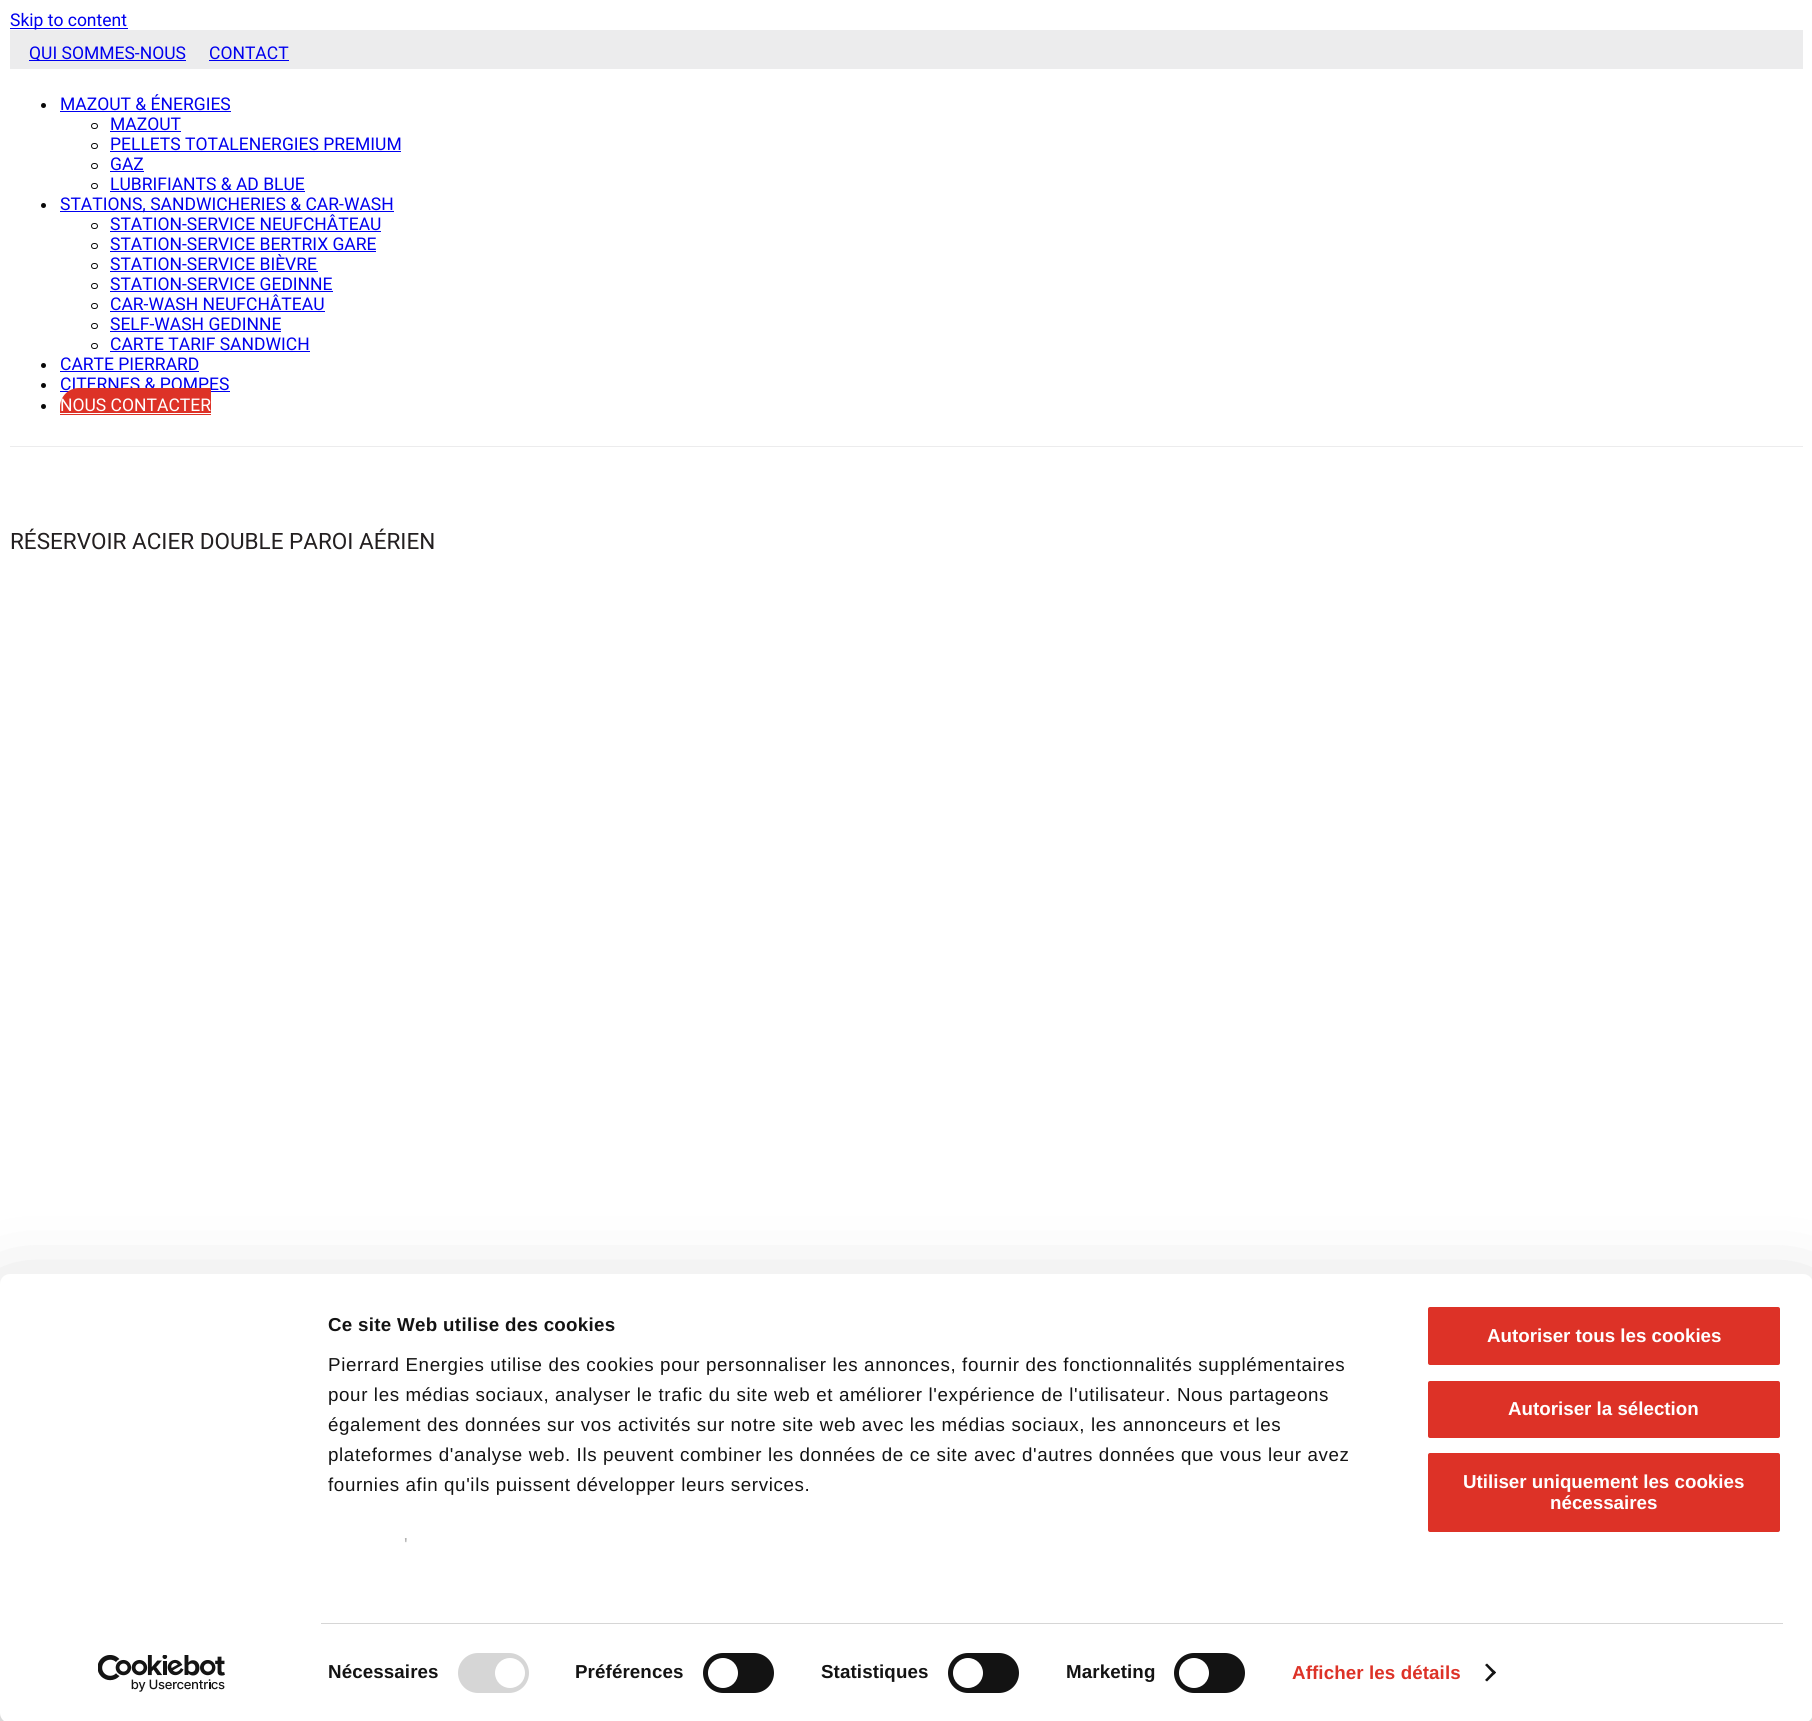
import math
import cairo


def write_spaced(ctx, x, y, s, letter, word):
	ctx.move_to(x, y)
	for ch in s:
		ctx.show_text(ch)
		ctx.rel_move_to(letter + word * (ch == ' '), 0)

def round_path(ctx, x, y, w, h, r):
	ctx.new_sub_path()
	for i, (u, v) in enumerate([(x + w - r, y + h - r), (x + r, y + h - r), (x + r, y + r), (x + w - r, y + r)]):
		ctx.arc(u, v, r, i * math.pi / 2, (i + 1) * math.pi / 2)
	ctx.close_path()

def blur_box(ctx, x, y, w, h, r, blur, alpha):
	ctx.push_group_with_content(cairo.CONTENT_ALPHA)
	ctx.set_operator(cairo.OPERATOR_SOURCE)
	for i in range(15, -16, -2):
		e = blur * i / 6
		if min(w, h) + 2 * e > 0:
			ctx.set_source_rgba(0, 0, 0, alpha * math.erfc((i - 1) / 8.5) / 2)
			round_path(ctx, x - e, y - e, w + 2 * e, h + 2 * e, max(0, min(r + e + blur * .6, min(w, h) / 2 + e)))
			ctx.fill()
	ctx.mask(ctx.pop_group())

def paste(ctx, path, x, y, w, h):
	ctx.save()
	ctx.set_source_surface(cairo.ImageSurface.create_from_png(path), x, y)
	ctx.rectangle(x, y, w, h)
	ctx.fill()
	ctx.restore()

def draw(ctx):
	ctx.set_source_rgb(1, 1, 1)
	ctx.paint()
	ctx.set_source_rgb(0, 0, 0.933)
	ctx.rectangle(10, 28, 118, 1)
	ctx.fill()
	ctx.select_font_face('Roboto')
	ctx.set_font_size(17.5)
	ctx.move_to(10, 26)
	ctx.show_text('Skip to content')
	ctx.set_source_rgb(0.925, 0.925, 0.929)
	ctx.rectangle(10, 30, 1793, 39)
	ctx.fill()
	ctx.set_source_rgb(0, 0, 0.933)
	ctx.rectangle(29, 60, 157, 1)
	ctx.fill()
	ctx.move_to(29, 59)
	ctx.show_text('QUI SOMMES-NOUS')
	ctx.move_to(209, 59)
	ctx.show_text('CONTACT')
	ctx.rectangle(209, 60, 80, 1)
	ctx.fill()
	ctx.set_source_rgb(0.925, 0.925, 0.929)
	ctx.rectangle(10, 446, 1793, 1)
	ctx.fill()
	ctx.set_source_rgb(0.039, 0.039, 0.039)
	ctx.arc(43.5, 105.5, 2.5, 0, 2 * math.pi)
	ctx.fill()
	ctx.set_source_rgb(0, 0, 0.933)
	ctx.move_to(60, 110)
	ctx.show_text('MAZOUT & ÉNERGIES')
	ctx.rectangle(60, 111, 171, 1)
	ctx.fill()
	round_path(ctx, 91.5, 123.5, 6, 5, 2.5)
	ctx.set_source_rgb(0.039, 0.039, 0.039)
	ctx.set_line_width(1)
	ctx.stroke()
	ctx.set_source_rgb(0, 0, 0.933)
	ctx.move_to(110, 130)
	ctx.show_text('MAZOUT')
	ctx.rectangle(110, 131, 71, 1)
	ctx.fill()
	round_path(ctx, 91.5, 143.5, 6, 5, 2.5)
	ctx.set_source_rgb(0.039, 0.039, 0.039)
	ctx.stroke()
	ctx.set_source_rgb(0, 0, 0.933)
	ctx.move_to(110, 150)
	ctx.show_text('PELLETS TOTALENERGIES PREMIUM')
	ctx.rectangle(110, 151, 291, 1)
	ctx.fill()
	round_path(ctx, 91.5, 163.5, 6, 5, 2.5)
	ctx.set_source_rgb(0.039, 0.039, 0.039)
	ctx.stroke()
	ctx.set_source_rgb(0, 0, 0.933)
	ctx.move_to(110, 170)
	ctx.show_text('GAZ')
	ctx.rectangle(110, 171, 34, 1)
	ctx.fill()
	round_path(ctx, 91.5, 183.5, 6, 5, 2.5)
	ctx.set_source_rgb(0.039, 0.039, 0.039)
	ctx.stroke()
	ctx.set_source_rgb(0, 0, 0.933)
	ctx.move_to(110, 190)
	ctx.show_text('LUBRIFIANTS & AD BLUE')
	ctx.rectangle(110, 191, 195, 1)
	ctx.fill()
	ctx.set_source_rgb(0.039, 0.039, 0.039)
	ctx.arc(43.5, 205.5, 2.5, 0, 2 * math.pi)
	ctx.fill()
	ctx.set_source_rgb(0, 0, 0.933)
	ctx.rectangle(60, 211, 334, 1)
	ctx.fill()
	ctx.move_to(60, 210)
	ctx.show_text('STATIONS, SANDWICHERIES & CAR-WASH')
	round_path(ctx, 91.5, 223.5, 6, 5, 2.5)
	ctx.set_source_rgb(0.039, 0.039, 0.039)
	ctx.stroke()
	ctx.set_source_rgb(0, 0, 0.933)
	ctx.move_to(110, 230)
	ctx.show_text('STATION-SERVICE NEUFCHÂTEAU')
	ctx.rectangle(110, 231, 271, 1)
	ctx.fill()
	round_path(ctx, 91.5, 243.5, 6, 5, 2.5)
	ctx.set_source_rgb(0.039, 0.039, 0.039)
	ctx.stroke()
	ctx.set_source_rgb(0, 0, 0.933)
	ctx.move_to(110, 250)
	ctx.show_text('STATION-SERVICE BERTRIX GARE')
	ctx.rectangle(110, 251, 266, 1)
	ctx.fill()
	round_path(ctx, 91.5, 263.5, 6, 5, 2.5)
	ctx.set_source_rgb(0.039, 0.039, 0.039)
	ctx.stroke()
	ctx.set_source_rgb(0, 0, 0.933)
	ctx.move_to(110, 270)
	ctx.show_text('STATION-SERVICE BIÈVRE')
	ctx.rectangle(110, 271, 208, 1)
	ctx.fill()
	round_path(ctx, 91.5, 283.5, 6, 5, 2.5)
	ctx.set_source_rgb(0.039, 0.039, 0.039)
	ctx.stroke()
	ctx.set_source_rgb(0, 0, 0.933)
	ctx.move_to(110, 290)
	ctx.show_text('STATION-SERVICE GEDINNE')
	ctx.rectangle(110, 291, 223, 1)
	ctx.fill()
	round_path(ctx, 91.5, 303.5, 6, 5, 2.5)
	ctx.set_source_rgb(0.039, 0.039, 0.039)
	ctx.stroke()
	ctx.set_source_rgb(0, 0, 0.933)
	ctx.move_to(110, 310)
	ctx.show_text('CAR-WASH NEUFCHÂTEAU')
	ctx.rectangle(110, 311, 215, 1)
	ctx.fill()
	round_path(ctx, 91.5, 323.5, 6, 5, 2.5)
	ctx.set_source_rgb(0.039, 0.039, 0.039)
	ctx.stroke()
	ctx.set_source_rgb(0, 0, 0.933)
	ctx.move_to(110, 330)
	ctx.show_text('SELF-WASH GEDINNE')
	ctx.rectangle(110, 331, 171, 1)
	ctx.fill()
	round_path(ctx, 91.5, 343.5, 6, 5, 2.5)
	ctx.set_source_rgb(0.039, 0.039, 0.039)
	ctx.stroke()
	ctx.set_source_rgb(0, 0, 0.933)
	ctx.move_to(110, 350)
	ctx.show_text('CARTE TARIF SANDWICH')
	ctx.rectangle(110, 351, 200, 1)
	ctx.fill()
	ctx.set_source_rgb(0.039, 0.039, 0.039)
	ctx.arc(43.5, 365.5, 2.5, 0, 2 * math.pi)
	ctx.fill()
	ctx.set_source_rgb(0, 0, 0.933)
	ctx.move_to(60, 370)
	ctx.show_text('CARTE PIERRARD')
	ctx.rectangle(60, 371, 139, 1)
	ctx.fill()
	ctx.set_source_rgb(0.039, 0.039, 0.039)
	ctx.arc(43.5, 385.5, 2.5, 0, 2 * math.pi)
	ctx.fill()
	ctx.set_source_rgb(0, 0, 0.933)
	ctx.move_to(60, 390)
	ctx.show_text('CITERNES & POMPES')
	ctx.rectangle(60, 391, 170, 1)
	ctx.fill()
	ctx.set_source_rgb(0.039, 0.039, 0.039)
	ctx.arc(43.5, 406.5, 2.5, 0, 2 * math.pi)
	ctx.fill()
	ctx.set_source_rgb(0.867, 0.196, 0.153)
	ctx.new_path()
	ctx.move_to(79, 388)
	ctx.line_to(211, 388)
	ctx.line_to(211, 415)
	ctx.line_to(60, 415)
	ctx.line_to(60, 407)
	ctx.curve_to(60, 396.5, 68.5, 388, 79, 388)
	ctx.close_path()
	ctx.fill()
	ctx.set_source_rgb(1, 1, 1)
	ctx.move_to(60, 411)
	ctx.show_text('NOUS CONTACTER')
	ctx.rectangle(60, 413, 151, 1)
	ctx.fill()
	ctx.set_font_size(22.5)
	ctx.set_source_rgb(0.137, 0.122, 0.125)
	ctx.move_to(10, 549)
	ctx.show_text('RÉSERVOIR ACIER DOUBLE PAROI AÉRIEN')
	ctx.set_source_rgb(0, 0, 0)
	blur_box(ctx, 0, 1311, 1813, 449, 10, 44, 0.3)
	ctx.set_source_rgb(1, 1, 1)
	round_path(ctx, 0, 1274, 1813, 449, 10)
	ctx.fill()
	ctx.select_font_face('Liberation Sans', cairo.FONT_SLANT_NORMAL, cairo.FONT_WEIGHT_BOLD)
	ctx.set_font_size(18.75)
	ctx.set_source_rgb(0.078, 0.078, 0.078)
	write_spaced(ctx, 328, 1331, 'Ce site Web utilise des cookies', 0.3, 0)
	ctx.select_font_face('Liberation Sans')
	for x, y, s in [
		(328, 1371, 'Pierrard Energies utilise des cookies pour personnaliser les annonces, fournir des fonctionnalités supplémentaires'),
		(328, 1401, 'pour les médias sociaux, analyser le trafic du site web et améliorer l\'expérience de l\'utilisateur. Nous partageons'),
		(328, 1431, 'également des données sur vos activités sur notre site web avec les médias sociaux, les annonceurs et les'),
		(328, 1461, 'plateformes d\'analyse web. Ils peuvent combiner les données de ce site avec d\'autres données que vous leur avez'),
		(328, 1491, 'fournies afin qu\'ils puissent développer leurs services.'),
		(404, 1551, '\''),
	]:
		write_spaced(ctx, x, y, s, 0.62, 0)
	gradient = cairo.LinearGradient(846, 1594, 846, 1501)
	gradient.add_color_stop_rgba(0, 1, 1, 1, 1)
	gradient.add_color_stop_rgba(0.5, 1, 1, 1, 0.8)
	gradient.add_color_stop_rgba(1, 1, 1, 1, 0)
	ctx.set_source(gradient)
	ctx.rectangle(405, 1538, 2, 5)
	ctx.fill()
	ctx.set_source_rgb(0.839, 0.839, 0.839)
	ctx.rectangle(321, 1623, 1462, 1)
	ctx.fill()
	ctx.select_font_face('Liberation Sans', cairo.FONT_SLANT_NORMAL, cairo.FONT_WEIGHT_BOLD)
	ctx.set_source_rgb(0.078, 0.078, 0.078)
	write_spaced(ctx, 328, 1678, 'Nécessaires', 0.1, 0)
	ctx.set_source_rgb(0.839, 0.839, 0.839)
	round_path(ctx, 458, 1653, 71, 40, 20)
	ctx.fill()
	ctx.set_source_rgb(1, 1, 1)
	ctx.arc(510, 1673, 15, 0, 2 * math.pi)
	ctx.fill()
	ctx.set_source_rgb(0.078, 0.078, 0.078)
	write_spaced(ctx, 575, 1678, 'Préférences', 0.1, 0)
	round_path(ctx, 703, 1653, 71, 40, 20)
	ctx.fill()
	ctx.set_source_rgb(1, 1, 1)
	ctx.arc(723, 1673, 15, 0, 2 * math.pi)
	ctx.fill()
	ctx.set_source_rgb(0.078, 0.078, 0.078)
	write_spaced(ctx, 821, 1678, 'Statistiques', 0.1, 0)
	round_path(ctx, 948, 1653, 71, 40, 20)
	ctx.fill()
	ctx.set_source_rgb(1, 1, 1)
	ctx.arc(968, 1673, 15, 0, 2 * math.pi)
	ctx.fill()
	ctx.set_source_rgb(0.078, 0.078, 0.078)
	write_spaced(ctx, 1066, 1678, 'Marketing', 0.1, 0)
	round_path(ctx, 1174, 1653, 71, 40, 20)
	ctx.fill()
	ctx.set_source_rgb(1, 1, 1)
	ctx.arc(1194, 1673, 15, 0, 2 * math.pi)
	ctx.fill()
	ctx.set_source_rgb(0.867, 0.196, 0.153)
	write_spaced(ctx, 1292, 1679, 'Afficher les détails', 0.1, 0)
	ctx.set_source_rgb(0.078, 0.078, 0.078)
	ctx.new_path()
	ctx.move_to(1487, 1663.5)
	ctx.line_to(1496, 1672.5)
	ctx.line_to(1494, 1674.5)
	ctx.line_to(1485, 1665)
	ctx.close_path()
	ctx.fill()
	ctx.new_path()
	ctx.move_to(1494, 1670.5)
	ctx.line_to(1496, 1672.5)
	ctx.line_to(1487, 1681.5)
	ctx.line_to(1485, 1680)
	ctx.close_path()
	ctx.fill()
	ctx.set_source_rgb(0.867, 0.196, 0.153)
	round_path(ctx, 1426.5, 1305.5, 355, 61, 3.5)
	ctx.fill_preserve()
	ctx.set_source_rgb(1, 1, 1)
	ctx.set_line_width(3)
	ctx.stroke()
	ctx.move_to(1487, 1342)
	ctx.show_text('Autoriser tous les cookies')
	ctx.set_source_rgb(0.867, 0.196, 0.153)
	round_path(ctx, 1426.5, 1379.5, 355, 60, 3.5)
	ctx.fill_preserve()
	ctx.set_source_rgb(1, 1, 1)
	ctx.stroke()
	ctx.move_to(1508, 1415)
	ctx.show_text('Autoriser la sélection')
	ctx.set_source_rgb(0.867, 0.196, 0.153)
	round_path(ctx, 1426.5, 1451.5, 355, 82, 3.5)
	ctx.fill_preserve()
	ctx.set_source_rgb(1, 1, 1)
	ctx.stroke()
	ctx.move_to(1463, 1488)
	ctx.show_text('Utiliser uniquement les cookies')
	ctx.move_to(1550, 1509)
	ctx.show_text('nécessaires')
	paste(ctx, 'media/1.png', 98, 1655, 127, 37)


surface = cairo.ImageSurface(cairo.FORMAT_RGB24, 1812, 1721)
ctx = cairo.Context(surface)
options = cairo.FontOptions()
options.set_hint_metrics(cairo.HINT_METRICS_OFF)
options.set_hint_style(cairo.HINT_STYLE_NONE)
ctx.set_font_options(options)
ctx.set_miter_limit(4)
draw(ctx)
surface.write_to_png('image.png')
